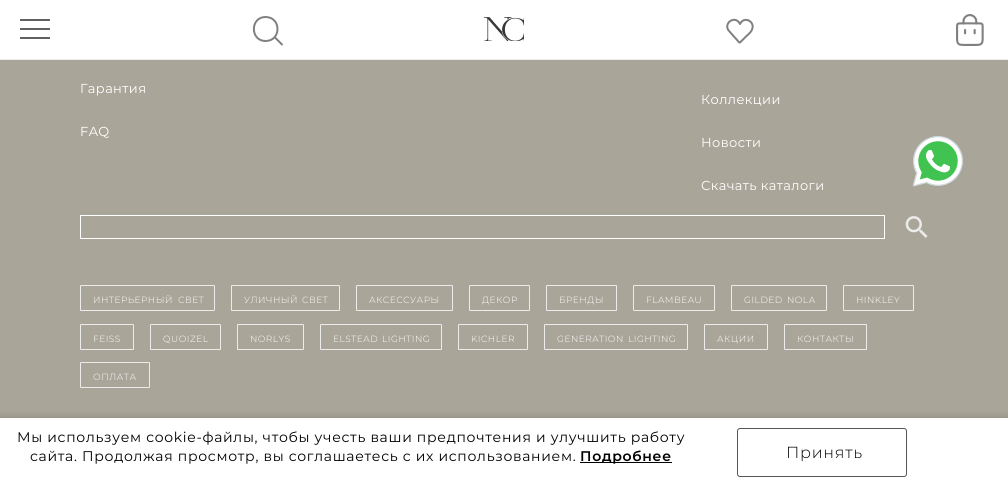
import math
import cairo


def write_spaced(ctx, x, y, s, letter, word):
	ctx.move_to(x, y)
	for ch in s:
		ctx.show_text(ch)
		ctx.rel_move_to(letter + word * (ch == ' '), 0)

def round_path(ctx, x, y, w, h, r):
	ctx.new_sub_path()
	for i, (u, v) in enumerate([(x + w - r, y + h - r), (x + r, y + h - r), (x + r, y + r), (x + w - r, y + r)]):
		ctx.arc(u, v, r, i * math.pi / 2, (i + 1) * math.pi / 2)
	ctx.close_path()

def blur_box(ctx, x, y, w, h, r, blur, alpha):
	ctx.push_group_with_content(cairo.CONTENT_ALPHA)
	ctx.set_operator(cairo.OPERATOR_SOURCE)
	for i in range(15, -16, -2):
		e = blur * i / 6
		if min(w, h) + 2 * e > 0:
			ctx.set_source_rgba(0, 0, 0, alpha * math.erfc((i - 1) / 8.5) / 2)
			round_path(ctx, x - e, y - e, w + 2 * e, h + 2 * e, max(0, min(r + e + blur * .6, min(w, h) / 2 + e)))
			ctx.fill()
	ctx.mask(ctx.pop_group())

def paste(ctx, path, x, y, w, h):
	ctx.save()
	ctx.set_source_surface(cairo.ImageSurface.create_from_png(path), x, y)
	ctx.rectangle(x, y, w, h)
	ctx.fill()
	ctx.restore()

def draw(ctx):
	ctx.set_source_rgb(0.663, 0.647, 0.6)
	ctx.paint()
	ctx.set_source_rgb(1, 1, 1)
	ctx.rectangle(0, 0, 1008, 59)
	ctx.fill()
	ctx.set_source_rgb(0.922, 0.922, 0.922)
	ctx.rectangle(0, 59, 1008, 1)
	ctx.fill()
	ctx.set_source_rgb(0.38, 0.38, 0.38)
	ctx.rectangle(20, 28, 30, 2)
	ctx.rectangle(20, 19, 30, 2)
	ctx.rectangle(20, 37, 30, 2)
	ctx.fill()
	ctx.new_path()
	ctx.move_to(265.5, 17)
	ctx.curve_to(250, 17, 250, 41, 265.5, 41)
	ctx.curve_to(281.5, 41, 281.5, 17, 265.5, 17)
	ctx.close_path()
	ctx.move_to(274, 36.5)
	ctx.line_to(282.5, 45)
	ctx.set_source_rgb(0.502, 0.502, 0.502)
	ctx.stroke()
	paste(ctx, 'media/1.png', 484, 17, 40, 24)
	ctx.new_path()
	ctx.move_to(729.5, 31.5)
	ctx.line_to(737.5, 40.5)
	ctx.curve_to(738.5, 41.5, 739.5, 43.5, 740.5, 42)
	ctx.line_to(745.5, 37)
	ctx.curve_to(748, 34.5, 751, 32.5, 752, 29.5)
	ctx.curve_to(755.5, 21.5, 744, 15.5, 740, 24)
	ctx.curve_to(735, 14, 722, 24, 729.5, 31.5)
	ctx.close_path()
	ctx.set_line_join(cairo.LINE_JOIN_ROUND)
	ctx.stroke()
	paste(ctx, 'media/2.png', 956, 14, 28, 32)
	ctx.select_font_face('Montserrat')
	ctx.set_font_size(13)
	ctx.set_source_rgb(1, 1, 1)
	for x, y, s in [
		(80, 93, 'Гарантия'),
		(80, 136, 'FAQ'),
		(701, 104, 'Коллекции'),
		(701, 147, 'Новости'),
		(701, 190, 'Скачать каталоги'),
	]:
		write_spaced(ctx, x, y, s, 0.4, 0)
	ctx.rectangle(80.5, 215.5, 804, 23)
	ctx.set_line_width(1)
	ctx.set_line_join(cairo.LINE_JOIN_MITER)
	ctx.stroke()
	paste(ctx, 'media/3.png', 905, 216, 23, 22)
	round_path(ctx, 80.5, 285.5, 134, 25, 0.5)
	ctx.set_source_rgb(0.922, 0.922, 0.922)
	ctx.stroke()
	ctx.select_font_face('Montserrat Light')
	ctx.set_font_size(9)
	ctx.set_source_rgb(1, 1, 1)
	write_spaced(ctx, 93, 303, 'ИНТЕРЬЕРНЫЙ', 0.5, 0)
	write_spaced(ctx, 178, 303, 'СВЕТ', 0.5, 0)
	round_path(ctx, 231.5, 285.5, 108, 25, 0.5)
	ctx.set_source_rgb(0.922, 0.922, 0.922)
	ctx.stroke()
	ctx.set_source_rgb(1, 1, 1)
	write_spaced(ctx, 244, 303, 'УЛИЧНЫЙ', 0.5, 0)
	write_spaced(ctx, 302, 303, 'СВЕТ', 0.5, 0)
	round_path(ctx, 356.5, 285.5, 96, 25, 0.5)
	ctx.set_source_rgb(0.922, 0.922, 0.922)
	ctx.stroke()
	ctx.set_source_rgb(1, 1, 1)
	write_spaced(ctx, 369, 303, 'АКСЕССУАРЫ', 0.5, 0)
	round_path(ctx, 469.5, 285.5, 60, 25, 0.5)
	ctx.set_source_rgb(0.922, 0.922, 0.922)
	ctx.stroke()
	ctx.set_source_rgb(1, 1, 1)
	write_spaced(ctx, 482, 303, 'ДЕКОР', 0.5, 0)
	round_path(ctx, 546.5, 285.5, 70, 25, 0.5)
	ctx.set_source_rgb(0.922, 0.922, 0.922)
	ctx.stroke()
	ctx.set_source_rgb(1, 1, 1)
	write_spaced(ctx, 559, 303, 'БРЕНДЫ', 0.5, 0)
	round_path(ctx, 633.5, 285.5, 81, 25, 0.5)
	ctx.set_source_rgb(0.922, 0.922, 0.922)
	ctx.stroke()
	ctx.set_source_rgb(1, 1, 1)
	write_spaced(ctx, 646, 303, 'FLAMBEAU', 0.5, 0)
	round_path(ctx, 731.5, 285.5, 95, 25, 0.5)
	ctx.set_source_rgb(0.922, 0.922, 0.922)
	ctx.stroke()
	ctx.set_source_rgb(1, 1, 1)
	write_spaced(ctx, 744, 303, 'GILDED', 0.5, 0)
	write_spaced(ctx, 787, 303, 'NOLA', 0.5, 0)
	round_path(ctx, 843.5, 285.5, 70, 25, 0.5)
	ctx.set_source_rgb(0.922, 0.922, 0.922)
	ctx.stroke()
	ctx.set_source_rgb(1, 1, 1)
	write_spaced(ctx, 856, 303, 'HINKLEY', 0.5, 0)
	round_path(ctx, 80.5, 324.5, 53, 25, 0.5)
	ctx.set_source_rgb(0.922, 0.922, 0.922)
	ctx.stroke()
	ctx.set_source_rgb(1, 1, 1)
	write_spaced(ctx, 93, 342, 'FEISS', 0.5, 0)
	round_path(ctx, 150.5, 324.5, 70, 25, 0.5)
	ctx.set_source_rgb(0.922, 0.922, 0.922)
	ctx.stroke()
	ctx.set_source_rgb(1, 1, 1)
	write_spaced(ctx, 163, 342, 'QUOIZEL', 0.5, 0)
	round_path(ctx, 237.5, 324.5, 66, 25, 0.5)
	ctx.set_source_rgb(0.922, 0.922, 0.922)
	ctx.stroke()
	ctx.set_source_rgb(1, 1, 1)
	write_spaced(ctx, 250, 342, 'NORLYS', 0.5, 0)
	round_path(ctx, 320.5, 324.5, 121, 25, 0.5)
	ctx.set_source_rgb(0.922, 0.922, 0.922)
	ctx.stroke()
	ctx.set_source_rgb(1, 1, 1)
	write_spaced(ctx, 333, 342, 'ELSTEAD', 0.5, 0)
	write_spaced(ctx, 382, 342, 'LIGHTING', 0.5, 0)
	round_path(ctx, 458.5, 324.5, 69, 25, 0.5)
	ctx.set_source_rgb(0.922, 0.922, 0.922)
	ctx.stroke()
	ctx.set_source_rgb(1, 1, 1)
	write_spaced(ctx, 471, 342, 'KICHLER', 0.5, 0)
	round_path(ctx, 544.5, 324.5, 143, 25, 0.5)
	ctx.set_source_rgb(0.922, 0.922, 0.922)
	ctx.stroke()
	ctx.set_source_rgb(1, 1, 1)
	write_spaced(ctx, 557, 342, 'GENERATION', 0.5, 0)
	write_spaced(ctx, 628, 342, 'LIGHTING', 0.5, 0)
	round_path(ctx, 704.5, 324.5, 63, 25, 0.5)
	ctx.set_source_rgb(0.922, 0.922, 0.922)
	ctx.stroke()
	ctx.set_source_rgb(1, 1, 1)
	write_spaced(ctx, 717, 342, 'АКЦИИ', 0.5, 0)
	round_path(ctx, 784.5, 324.5, 82, 25, 0.5)
	ctx.set_source_rgb(0.922, 0.922, 0.922)
	ctx.stroke()
	ctx.set_source_rgb(1, 1, 1)
	write_spaced(ctx, 797, 342, 'КОНТАКТЫ', 0.5, 0)
	round_path(ctx, 80.5, 362.5, 69, 25, 0.5)
	ctx.set_source_rgb(0.922, 0.922, 0.922)
	ctx.stroke()
	ctx.set_source_rgb(1, 1, 1)
	write_spaced(ctx, 93, 380, 'ОПЛАТА', 0.5, 0)
	ctx.set_source_rgb(0, 0, 0)
	blur_box(ctx, -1, 417, 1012, 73, 0, 3.5, 0.16)
	ctx.set_source_rgb(1, 1, 1)
	ctx.rectangle(0, 418, 1008, 69)
	ctx.fill()
	ctx.select_font_face('Montserrat')
	ctx.set_font_size(14)
	ctx.set_source_rgb(0, 0, 0)
	write_spaced(ctx, 17, 442, 'Мы используем cookie-файлы, чтобы учесть ваши предпочтения и улучшить работу', 0.7, 0)
	write_spaced(ctx, 30, 461, 'сайта. Продолжая просмотр, вы соглашаетесь с их использованием.', 0.7, 0)
	ctx.rectangle(580, 462, 92, 1)
	ctx.fill()
	ctx.select_font_face('Montserrat SemiBold')
	write_spaced(ctx, 580, 461, 'Подробнее', 0.7, 0)
	round_path(ctx, 737.5, 428.5, 169, 48, 2.5)
	ctx.set_source_rgb(0.322, 0.333, 0.353)
	ctx.stroke()
	ctx.select_font_face('Montserrat Light')
	ctx.set_font_size(16)
	ctx.set_source_rgb(0, 0, 0)
	write_spaced(ctx, 786, 458, 'Принять', 0.75, 0)
	paste(ctx, 'media/4.png', 912, 136, 51, 51)


surface = cairo.ImageSurface(cairo.FORMAT_RGB24, 1008, 487)
ctx = cairo.Context(surface)
options = cairo.FontOptions()
options.set_hint_metrics(cairo.HINT_METRICS_OFF)
options.set_hint_style(cairo.HINT_STYLE_NONE)
ctx.set_font_options(options)
ctx.set_miter_limit(4)
draw(ctx)
surface.write_to_png('image.png')
